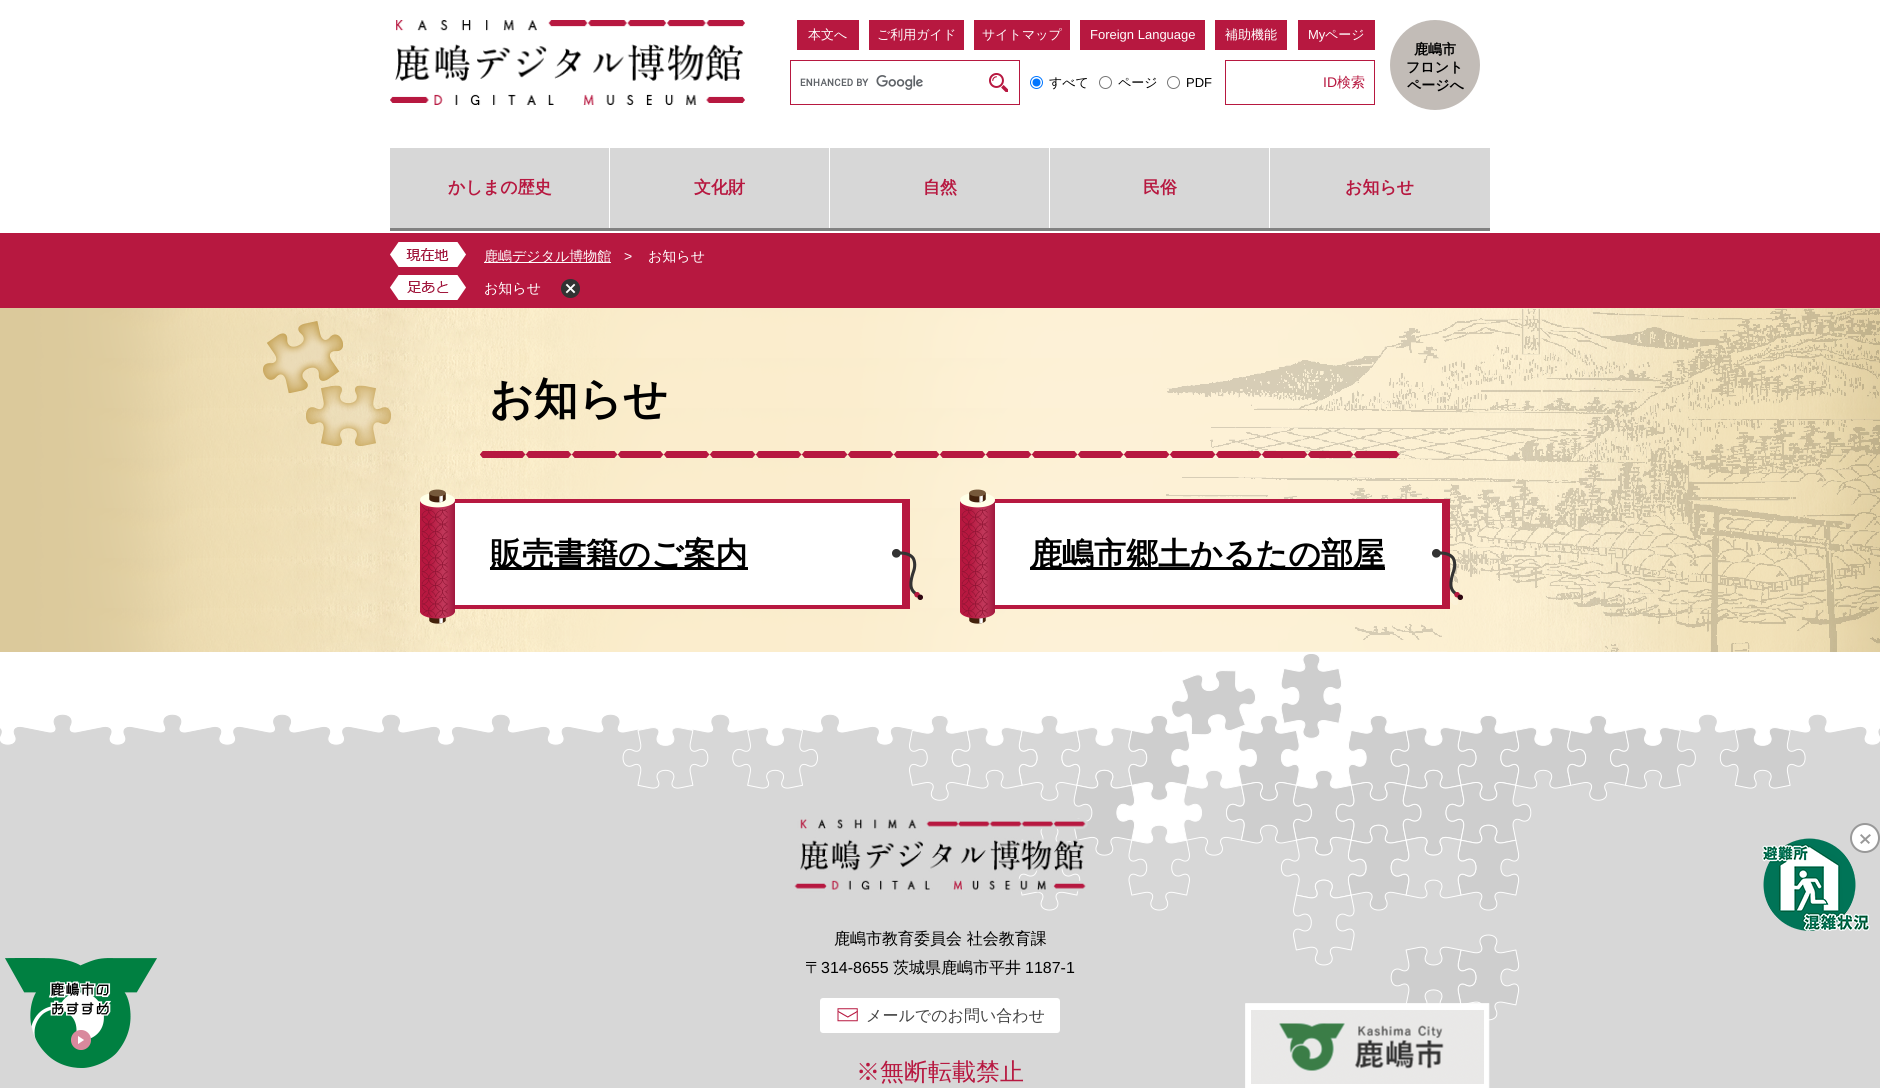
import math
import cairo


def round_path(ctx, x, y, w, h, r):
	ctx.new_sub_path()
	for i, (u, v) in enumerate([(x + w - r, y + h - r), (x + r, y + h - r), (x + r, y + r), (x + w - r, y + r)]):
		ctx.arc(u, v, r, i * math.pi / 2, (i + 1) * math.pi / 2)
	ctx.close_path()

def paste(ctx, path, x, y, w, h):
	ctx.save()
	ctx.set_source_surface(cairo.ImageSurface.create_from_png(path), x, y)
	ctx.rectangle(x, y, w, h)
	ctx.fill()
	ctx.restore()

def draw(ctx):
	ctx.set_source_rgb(1, 1, 1)
	ctx.paint()
	paste(ctx, 'media/1.png', 390, 20, 355, 85)
	ctx.set_source_rgb(0.718, 0.094, 0.251)
	ctx.rectangle(797, 20, 62, 30)
	ctx.fill()
	ctx.select_font_face('WenQuanYi Zen Hei Medium')
	ctx.set_font_size(13)
	ctx.set_source_rgb(1, 1, 1)
	ctx.move_to(808, 39)
	ctx.show_text('本文へ')
	ctx.set_source_rgb(0.718, 0.094, 0.251)
	ctx.rectangle(869, 20, 95, 30)
	ctx.fill()
	ctx.set_source_rgb(1, 1, 1)
	ctx.move_to(877, 39)
	ctx.show_text('ご利用ガイド')
	ctx.set_source_rgb(0.718, 0.094, 0.251)
	ctx.rectangle(974, 20, 96, 30)
	ctx.fill()
	ctx.set_source_rgb(1, 1, 1)
	ctx.move_to(982, 39)
	ctx.show_text('サイトマップ')
	ctx.set_source_rgb(0.718, 0.094, 0.251)
	ctx.rectangle(1080, 20, 125, 30)
	ctx.fill()
	ctx.select_font_face('Liberation Sans')
	ctx.set_source_rgb(1, 1, 1)
	ctx.move_to(1090, 39)
	ctx.show_text('Foreign Language')
	ctx.set_source_rgb(0.718, 0.094, 0.251)
	ctx.rectangle(1215, 20, 72, 30)
	ctx.fill()
	ctx.select_font_face('WenQuanYi Zen Hei Medium')
	ctx.set_source_rgb(1, 1, 1)
	ctx.move_to(1225, 39)
	ctx.show_text('補助機能')
	ctx.set_source_rgb(0.718, 0.094, 0.251)
	ctx.rectangle(1298, 20, 77, 30)
	ctx.fill()
	ctx.select_font_face('Liberation Sans')
	ctx.set_source_rgb(1, 1, 1)
	ctx.move_to(1308, 39)
	ctx.show_text('My')
	ctx.select_font_face('WenQuanYi Zen Hei Medium')
	ctx.move_to(1325, 39)
	ctx.show_text('ページ')
	ctx.rectangle(790.5, 60.5, 229, 44)
	ctx.set_source_rgb(0.718, 0.094, 0.251)
	ctx.set_line_width(1)
	ctx.stroke()
	paste(ctx, 'media/2.png', 800, 75, 123, 15)
	paste(ctx, 'media/3.png', 989, 73, 19, 19)
	ctx.arc(1036.5, 82.5, 6, 0, 2 * math.pi)
	ctx.set_source_rgb(0, 0.459, 1)
	ctx.stroke()
	ctx.arc(1036.5, 82.5, 4, 0, 2 * math.pi)
	ctx.fill()
	ctx.set_source_rgb(0, 0, 0)
	ctx.move_to(1049, 87)
	ctx.show_text('すべて')
	ctx.new_path()
	ctx.arc(1105.5, 82.5, 6, 0, 2 * math.pi)
	ctx.set_source_rgb(0.463, 0.463, 0.463)
	ctx.stroke()
	ctx.set_source_rgb(0, 0, 0)
	ctx.move_to(1118, 87)
	ctx.show_text('ページ')
	ctx.new_path()
	ctx.arc(1173.5, 82.5, 6, 0, 2 * math.pi)
	ctx.set_source_rgb(0.463, 0.463, 0.463)
	ctx.stroke()
	ctx.select_font_face('Liberation Sans')
	ctx.set_source_rgb(0, 0, 0)
	ctx.move_to(1186, 87)
	ctx.show_text('PDF')
	ctx.rectangle(1225.5, 60.5, 149, 44)
	ctx.set_source_rgb(0.718, 0.094, 0.251)
	ctx.stroke()
	ctx.set_font_size(14)
	ctx.move_to(1323, 87)
	ctx.show_text('ID')
	ctx.select_font_face('WenQuanYi Zen Hei Medium')
	ctx.move_to(1337, 87)
	ctx.show_text('検索')
	ctx.set_source_rgb(0.761, 0.737, 0.718)
	ctx.new_path()
	ctx.arc(1435, 65, 45, 0, 2 * math.pi)
	ctx.fill()
	ctx.select_font_face('WenQuanYi Zen Hei', cairo.FONT_SLANT_NORMAL, cairo.FONT_WEIGHT_BOLD)
	ctx.set_source_rgb(0, 0, 0)
	for x, y, s in [
		(1414, 54, '鹿嶋市'),
		(1406, 72, 'フロント'),
		(1407, 90, 'ページへ'),
	]:
		ctx.move_to(x, y)
		ctx.show_text(s)
	ctx.set_source_rgb(0.506, 0.506, 0.506)
	ctx.rectangle(390, 228, 1100, 3)
	ctx.fill()
	ctx.set_source_rgb(0.843, 0.843, 0.843)
	ctx.rectangle(390, 148, 219, 80)
	ctx.fill()
	ctx.set_font_size(17)
	ctx.set_source_rgb(0.718, 0.094, 0.251)
	ctx.move_to(448, 193)
	ctx.show_text('かしまの歴史')
	ctx.set_source_rgb(0.843, 0.843, 0.843)
	ctx.rectangle(610, 148, 219, 80)
	ctx.fill()
	ctx.set_source_rgb(0.718, 0.094, 0.251)
	ctx.move_to(694, 193)
	ctx.show_text('文化財')
	ctx.set_source_rgb(0.843, 0.843, 0.843)
	ctx.rectangle(830, 148, 219, 80)
	ctx.fill()
	ctx.set_source_rgb(0.718, 0.094, 0.251)
	ctx.move_to(923, 193)
	ctx.show_text('自然')
	ctx.set_source_rgb(0.843, 0.843, 0.843)
	ctx.rectangle(1050, 148, 219, 80)
	ctx.fill()
	ctx.set_source_rgb(0.718, 0.094, 0.251)
	ctx.move_to(1143, 193)
	ctx.show_text('民俗')
	ctx.set_source_rgb(0.843, 0.843, 0.843)
	ctx.rectangle(1270, 148, 220, 80)
	ctx.fill()
	ctx.set_source_rgb(0.718, 0.094, 0.251)
	ctx.move_to(1345, 193)
	ctx.show_text('お知らせ')
	ctx.rectangle(0, 233, 1880, 75)
	ctx.fill()
	paste(ctx, 'media/4.png', 390, 242, 76, 25)
	ctx.set_source_rgb(1, 1, 1)
	ctx.rectangle(484, 262, 127, 1)
	ctx.fill()
	ctx.select_font_face('WenQuanYi Zen Hei Medium')
	ctx.set_font_size(14)
	ctx.move_to(484, 261)
	ctx.show_text('鹿嶋デジタル博物館')
	ctx.select_font_face('Liberation Sans')
	ctx.move_to(624, 261)
	ctx.show_text('>')
	ctx.select_font_face('WenQuanYi Zen Hei Medium')
	ctx.move_to(648, 261)
	ctx.show_text('お知らせ')
	paste(ctx, 'media/5.png', 390, 275, 76, 25)
	ctx.move_to(484, 293)
	ctx.show_text('お知らせ')
	paste(ctx, 'media/6.png', 561, 279, 19, 19)
	paste(ctx, 'media/7.png', 0, 308, 1880, 344)
	paste(ctx, 'media/8.png', 263, 321, 128, 125)
	paste(ctx, 'media/15.png', 1162, 308, 718, 344)
	paste(ctx, 'media/9.png', 480, 451, 920, 7)
	ctx.select_font_face('WenQuanYi Zen Hei', cairo.FONT_SLANT_NORMAL, cairo.FONT_WEIGHT_BOLD)
	ctx.set_font_size(44)
	ctx.set_source_rgb(0, 0, 0)
	ctx.move_to(489, 414)
	ctx.show_text('お知らせ')
	ctx.set_source_rgb(1, 1, 1)
	ctx.rectangle(455, 503, 447, 102)
	ctx.fill()
	paste(ctx, 'media/10.png', 420, 524, 35, 73)
	ctx.set_source_rgb(0.718, 0.094, 0.251)
	ctx.rectangle(420, 499, 490, 4)
	ctx.rectangle(902, 499, 8, 110)
	ctx.rectangle(455, 605, 455, 4)
	ctx.fill()
	paste(ctx, 'media/11.png', 420, 489, 35, 135)
	ctx.set_source_rgb(0, 0, 0)
	ctx.rectangle(490, 567, 258, 3)
	ctx.fill()
	ctx.set_font_size(32)
	ctx.move_to(490, 565)
	ctx.show_text('販売書籍のご案内')
	paste(ctx, 'media/12.png', 892, 549, 31, 51)
	ctx.set_source_rgb(1, 1, 1)
	ctx.rectangle(995, 503, 447, 102)
	ctx.fill()
	paste(ctx, 'media/10.png', 960, 524, 35, 73)
	ctx.set_source_rgb(0.718, 0.094, 0.251)
	ctx.rectangle(960, 499, 490, 4)
	ctx.rectangle(1442, 499, 8, 110)
	ctx.rectangle(995, 605, 455, 4)
	ctx.fill()
	paste(ctx, 'media/13.png', 960, 489, 35, 135)
	ctx.set_source_rgb(0, 0, 0)
	ctx.rectangle(1030, 567, 355, 3)
	ctx.fill()
	ctx.move_to(1030, 565)
	ctx.show_text('鹿嶋市郷土かるたの部屋')
	paste(ctx, 'media/14.png', 1432, 549, 31, 51)
	paste(ctx, 'media/16.png', 0, 654, 1880, 434)
	paste(ctx, 'media/17.png', 794, 819, 294, 74)
	paste(ctx, 'media/18.png', 5, 958, 152, 110)
	paste(ctx, 'media/19.png', 71, 1030, 20, 20)
	ctx.select_font_face('WenQuanYi Zen Hei Medium')
	ctx.set_font_size(16)
	ctx.move_to(834, 944)
	ctx.show_text('鹿嶋市教育委員会 社会教育課')
	ctx.move_to(805, 973)
	ctx.show_text('〒')
	ctx.select_font_face('Liberation Sans')
	ctx.move_to(821, 973)
	ctx.show_text('314-8655')
	ctx.select_font_face('WenQuanYi Zen Hei Medium')
	ctx.move_to(893, 973)
	ctx.show_text('茨城県鹿嶋市平井')
	ctx.select_font_face('Liberation Sans')
	ctx.move_to(1025, 973)
	ctx.show_text('1187-1')
	ctx.set_source_rgb(1, 1, 1)
	round_path(ctx, 820, 998, 240, 35, 3)
	ctx.fill()
	paste(ctx, 'media/20.png', 837, 1008, 21, 14)
	ctx.select_font_face('WenQuanYi Zen Hei Medium')
	ctx.set_source_rgb(0.267, 0.267, 0.267)
	ctx.move_to(866, 1021)
	ctx.show_text('メールでのお問い合わせ')
	ctx.set_font_size(24)
	ctx.set_source_rgb(0.718, 0.094, 0.251)
	ctx.move_to(856, 1080)
	ctx.show_text('※無断転載禁止')
	paste(ctx, 'media/21.png', 1245, 1003, 245, 85)
	paste(ctx, 'media/23.png', 1762, 838, 108, 93)
	paste(ctx, 'media/22.png', 1850, 823, 30, 30)


surface = cairo.ImageSurface(cairo.FORMAT_RGB24, 1880, 1088)
ctx = cairo.Context(surface)
options = cairo.FontOptions()
options.set_hint_metrics(cairo.HINT_METRICS_OFF)
options.set_hint_style(cairo.HINT_STYLE_NONE)
ctx.set_font_options(options)
ctx.set_miter_limit(4)
draw(ctx)
surface.write_to_png('image.png')
